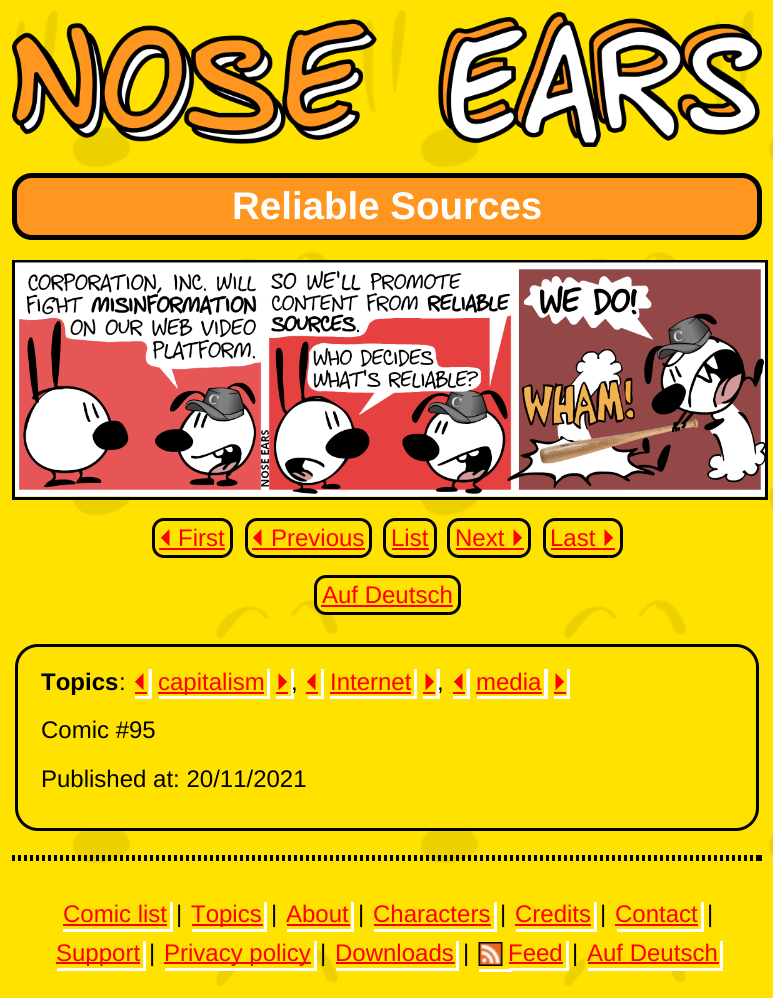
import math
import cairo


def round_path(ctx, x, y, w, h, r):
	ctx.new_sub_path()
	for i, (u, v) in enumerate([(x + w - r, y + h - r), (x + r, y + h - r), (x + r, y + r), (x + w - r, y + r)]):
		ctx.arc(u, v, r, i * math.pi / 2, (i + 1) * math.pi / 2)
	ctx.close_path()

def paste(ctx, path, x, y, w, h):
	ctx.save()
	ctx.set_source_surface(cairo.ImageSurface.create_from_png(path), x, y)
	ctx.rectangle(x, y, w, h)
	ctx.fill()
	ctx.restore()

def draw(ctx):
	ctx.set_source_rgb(1, 0.886, 0)
	ctx.paint()
	paste(ctx, 'media/1.png', 15, 10, 758, 976)
	paste(ctx, 'media/2.png', 12, 12, 750, 135)
	ctx.set_source_rgb(1, 0.588, 0.122)
	round_path(ctx, 14.5, 175.5, 745, 62, 17.5)
	ctx.fill_preserve()
	ctx.set_source_rgb(0, 0, 0)
	ctx.set_line_width(5)
	ctx.stroke()
	ctx.select_font_face('Liberation Sans', cairo.FONT_SLANT_NORMAL, cairo.FONT_WEIGHT_BOLD)
	ctx.set_font_size(38.5)
	ctx.set_source_rgb(1, 1, 1)
	ctx.move_to(232, 219)
	ctx.show_text('Reliable Sources')
	ctx.rectangle(13.5, 261.5, 753, 237)
	ctx.set_source_rgb(0, 0, 0)
	ctx.set_line_width(3)
	ctx.stroke()
	paste(ctx, 'media/3.png', 15, 262, 750, 235)
	round_path(ctx, 153.5, 519.5, 78, 37, 10.5)
	ctx.stroke()
	ctx.select_font_face('FreeSans')
	ctx.set_font_size(24)
	ctx.set_source_rgb(1, 0, 0)
	ctx.move_to(160, 546)
	ctx.show_text('⏴')
	ctx.rectangle(159, 548, 66, 2)
	ctx.fill()
	ctx.select_font_face('Liberation Sans')
	ctx.move_to(178, 546)
	ctx.show_text('First')
	round_path(ctx, 246.5, 519.5, 124, 37, 10.5)
	ctx.set_source_rgb(0, 0, 0)
	ctx.stroke()
	ctx.select_font_face('FreeSans')
	ctx.set_source_rgb(1, 0, 0)
	ctx.move_to(252, 546)
	ctx.show_text('⏴')
	ctx.rectangle(252, 548, 113, 2)
	ctx.fill()
	ctx.select_font_face('Liberation Sans')
	ctx.move_to(271, 546)
	ctx.show_text('Previous')
	round_path(ctx, 384.5, 519.5, 51, 37, 10.5)
	ctx.set_source_rgb(0, 0, 0)
	ctx.stroke()
	ctx.set_source_rgb(1, 0, 0)
	ctx.move_to(391, 546)
	ctx.show_text('List')
	ctx.rectangle(392, 548, 37, 2)
	ctx.fill()
	round_path(ctx, 448.5, 519.5, 81, 37, 10.5)
	ctx.set_source_rgb(0, 0, 0)
	ctx.stroke()
	ctx.set_source_rgb(1, 0, 0)
	ctx.move_to(455, 546)
	ctx.show_text('Next')
	ctx.rectangle(456, 548, 68, 2)
	ctx.fill()
	ctx.select_font_face('FreeSans')
	ctx.move_to(511, 546)
	ctx.show_text('⏵')
	round_path(ctx, 544.5, 519.5, 77, 37, 10.5)
	ctx.set_source_rgb(0, 0, 0)
	ctx.stroke()
	ctx.select_font_face('Liberation Sans')
	ctx.set_source_rgb(1, 0, 0)
	ctx.move_to(550, 546)
	ctx.show_text('Last')
	ctx.rectangle(551, 548, 64, 2)
	ctx.fill()
	ctx.select_font_face('FreeSans')
	ctx.move_to(602, 546)
	ctx.show_text('⏵')
	ctx.set_source_rgb(1, 0.886, 0)
	round_path(ctx, 315.5, 576.5, 144, 37, 10.5)
	ctx.fill_preserve()
	ctx.set_source_rgb(0, 0, 0)
	ctx.stroke()
	ctx.select_font_face('Liberation Sans')
	ctx.set_source_rgb(1, 0, 0)
	ctx.move_to(322, 603)
	ctx.show_text('Auf Deutsch')
	ctx.rectangle(321, 605, 132, 2)
	ctx.fill()
	ctx.set_source_rgb(1, 0.886, 0)
	round_path(ctx, 16.5, 645.5, 741, 184, 21.5)
	ctx.fill_preserve()
	ctx.set_source_rgb(0, 0, 0)
	ctx.stroke()
	ctx.select_font_face('Liberation Sans', cairo.FONT_SLANT_NORMAL, cairo.FONT_WEIGHT_BOLD)
	ctx.move_to(41, 690)
	ctx.show_text('Topics')
	ctx.select_font_face('Liberation Sans')
	ctx.move_to(119, 690)
	ctx.show_text(':')
	ctx.set_source_rgb(1, 1, 1)
	ctx.new_path()
	ctx.move_to(135, 696)
	ctx.line_to(135, 699)
	ctx.line_to(152, 699)
	ctx.line_to(152, 669)
	ctx.line_to(148.5, 669)
	ctx.line_to(148.5, 696)
	ctx.close_path()
	ctx.fill()
	ctx.select_font_face('FreeSans')
	ctx.set_source_rgb(1, 0, 0)
	ctx.move_to(134, 690)
	ctx.show_text('⏴')
	ctx.rectangle(135, 692, 12, 2)
	ctx.fill()
	ctx.set_source_rgb(1, 1, 1)
	ctx.new_path()
	ctx.move_to(159, 696)
	ctx.line_to(159, 699)
	ctx.line_to(270, 699)
	ctx.line_to(270, 669)
	ctx.line_to(267, 669)
	ctx.line_to(267, 696)
	ctx.close_path()
	ctx.fill()
	ctx.set_source_rgb(1, 0, 0)
	ctx.rectangle(158, 692, 106, 2)
	ctx.fill()
	ctx.select_font_face('Liberation Sans')
	ctx.move_to(158, 690)
	ctx.show_text('capitalism')
	ctx.set_source_rgb(1, 1, 1)
	ctx.new_path()
	ctx.move_to(276, 696)
	ctx.line_to(276, 699)
	ctx.line_to(294, 699)
	ctx.line_to(294, 669)
	ctx.line_to(291, 669)
	ctx.line_to(291, 696)
	ctx.close_path()
	ctx.fill()
	ctx.select_font_face('FreeSans')
	ctx.set_source_rgb(1, 0, 0)
	ctx.move_to(276, 690)
	ctx.show_text('⏵')
	ctx.rectangle(276, 692, 12, 2)
	ctx.fill()
	ctx.select_font_face('Liberation Sans')
	ctx.set_source_rgb(0, 0, 0)
	ctx.move_to(291, 690)
	ctx.show_text(',')
	ctx.set_source_rgb(1, 1, 1)
	ctx.new_path()
	ctx.move_to(308, 696)
	ctx.line_to(308, 699)
	ctx.line_to(324, 699)
	ctx.line_to(324, 669)
	ctx.line_to(321, 669)
	ctx.line_to(321, 696)
	ctx.close_path()
	ctx.fill()
	ctx.select_font_face('FreeSans')
	ctx.set_source_rgb(1, 0, 0)
	ctx.move_to(306, 690)
	ctx.show_text('⏴')
	ctx.rectangle(306, 692, 12, 2)
	ctx.fill()
	ctx.set_source_rgb(1, 1, 1)
	ctx.new_path()
	ctx.move_to(330, 696)
	ctx.line_to(330, 699)
	ctx.line_to(417, 699)
	ctx.line_to(417, 669)
	ctx.line_to(414, 669)
	ctx.line_to(414, 696)
	ctx.close_path()
	ctx.fill()
	ctx.select_font_face('Liberation Sans')
	ctx.set_source_rgb(1, 0, 0)
	ctx.move_to(330, 690)
	ctx.show_text('Internet')
	ctx.rectangle(330, 692, 81, 2)
	ctx.fill()
	ctx.set_source_rgb(1, 1, 1)
	ctx.new_path()
	ctx.move_to(423, 696)
	ctx.line_to(423, 699)
	ctx.line_to(440, 699)
	ctx.line_to(440, 669)
	ctx.line_to(436.5, 669)
	ctx.line_to(436.5, 696)
	ctx.close_path()
	ctx.fill()
	ctx.select_font_face('FreeSans')
	ctx.set_source_rgb(1, 0, 0)
	ctx.move_to(423, 690)
	ctx.show_text('⏵')
	ctx.rectangle(423, 692, 12, 2)
	ctx.fill()
	ctx.select_font_face('Liberation Sans')
	ctx.set_source_rgb(0, 0, 0)
	ctx.move_to(437, 690)
	ctx.show_text(',')
	ctx.set_source_rgb(1, 1, 1)
	ctx.new_path()
	ctx.move_to(453, 696)
	ctx.line_to(453, 699)
	ctx.line_to(470, 699)
	ctx.line_to(470, 669)
	ctx.line_to(466.5, 669)
	ctx.line_to(466.5, 696)
	ctx.close_path()
	ctx.fill()
	ctx.select_font_face('FreeSans')
	ctx.set_source_rgb(1, 0, 0)
	ctx.move_to(453, 690)
	ctx.show_text('⏴')
	ctx.rectangle(453, 692, 12, 2)
	ctx.fill()
	ctx.set_source_rgb(1, 1, 1)
	ctx.new_path()
	ctx.move_to(477, 696)
	ctx.line_to(477, 699)
	ctx.line_to(548, 699)
	ctx.line_to(548, 669)
	ctx.line_to(544, 669)
	ctx.line_to(544, 696)
	ctx.close_path()
	ctx.fill()
	ctx.select_font_face('Liberation Sans')
	ctx.set_source_rgb(1, 0, 0)
	ctx.move_to(476, 690)
	ctx.show_text('media')
	ctx.rectangle(476, 692, 66, 2)
	ctx.fill()
	ctx.set_source_rgb(1, 1, 1)
	ctx.new_path()
	ctx.move_to(554, 696)
	ctx.line_to(554, 699)
	ctx.line_to(570, 699)
	ctx.line_to(570, 669)
	ctx.line_to(567, 669)
	ctx.line_to(567, 696)
	ctx.close_path()
	ctx.fill()
	ctx.select_font_face('FreeSans')
	ctx.set_source_rgb(1, 0, 0)
	ctx.move_to(553, 690)
	ctx.show_text('⏵')
	ctx.rectangle(554, 692, 12, 2)
	ctx.fill()
	ctx.select_font_face('Liberation Sans')
	ctx.set_source_rgb(0, 0, 0)
	ctx.move_to(41, 738)
	ctx.show_text('Comic #95')
	ctx.move_to(41, 787)
	ctx.show_text('Published at: 20/11/2021')
	ctx.new_path()
	ctx.move_to(12, 856.5)
	ctx.line_to(762, 856.5)
	ctx.set_dash([3, 3])
	ctx.stroke()
	ctx.rectangle(759, 855, 3, 6)
	ctx.fill()
	ctx.new_path()
	ctx.move_to(12, 859.5)
	ctx.line_to(762, 859.5)
	ctx.stroke()
	ctx.set_source_rgb(1, 1, 1)
	ctx.new_path()
	ctx.move_to(63, 928)
	ctx.line_to(63, 932)
	ctx.line_to(173, 932)
	ctx.line_to(173, 902)
	ctx.line_to(170, 902)
	ctx.line_to(170, 928)
	ctx.close_path()
	ctx.fill()
	ctx.set_source_rgb(1, 0, 0)
	ctx.move_to(63, 922)
	ctx.show_text('Comic list')
	ctx.set_source_rgb(1, 0.886, 0)
	ctx.rectangle(63, 928, 107, 1)
	ctx.fill()
	ctx.set_source_rgb(1, 0, 0)
	ctx.rectangle(63, 924, 104, 2)
	ctx.fill()
	ctx.set_source_rgb(0, 0, 0)
	ctx.move_to(176, 922)
	ctx.show_text('|')
	ctx.set_source_rgb(1, 1, 1)
	ctx.new_path()
	ctx.move_to(192, 928)
	ctx.line_to(192, 932)
	ctx.line_to(267, 932)
	ctx.line_to(267, 902)
	ctx.line_to(264, 902)
	ctx.line_to(264, 928)
	ctx.close_path()
	ctx.fill()
	ctx.set_source_rgb(1, 0, 0)
	ctx.rectangle(192, 924, 71, 2)
	ctx.fill()
	ctx.move_to(191, 922)
	ctx.show_text('Topics')
	ctx.set_source_rgb(1, 0.886, 0)
	ctx.rectangle(192, 928, 72, 1)
	ctx.fill()
	ctx.set_source_rgb(0, 0, 0)
	ctx.move_to(271, 922)
	ctx.show_text('|')
	ctx.set_source_rgb(1, 1, 1)
	ctx.new_path()
	ctx.move_to(287, 928)
	ctx.line_to(287, 932)
	ctx.line_to(354, 932)
	ctx.line_to(354, 902)
	ctx.line_to(351, 902)
	ctx.line_to(351, 928)
	ctx.close_path()
	ctx.fill()
	ctx.set_source_rgb(1, 0, 0)
	ctx.move_to(286, 922)
	ctx.show_text('About')
	ctx.set_source_rgb(1, 0.886, 0)
	ctx.rectangle(287, 928, 64, 1)
	ctx.fill()
	ctx.set_source_rgb(1, 0, 0)
	ctx.rectangle(287, 924, 63, 2)
	ctx.fill()
	ctx.set_source_rgb(0, 0, 0)
	ctx.move_to(358, 922)
	ctx.show_text('|')
	ctx.set_source_rgb(1, 1, 1)
	ctx.new_path()
	ctx.move_to(374, 928)
	ctx.line_to(374, 932)
	ctx.line_to(497, 932)
	ctx.line_to(497, 902)
	ctx.line_to(494, 902)
	ctx.line_to(494, 928)
	ctx.close_path()
	ctx.fill()
	ctx.set_source_rgb(1, 0, 0)
	ctx.move_to(373, 922)
	ctx.show_text('Characters')
	ctx.set_source_rgb(1, 0.886, 0)
	ctx.rectangle(374, 928, 120, 1)
	ctx.fill()
	ctx.set_source_rgb(1, 0, 0)
	ctx.rectangle(374, 924, 117, 2)
	ctx.fill()
	ctx.set_source_rgb(0, 0, 0)
	ctx.move_to(500, 922)
	ctx.show_text('|')
	ctx.set_source_rgb(1, 1, 1)
	ctx.new_path()
	ctx.move_to(516, 928)
	ctx.line_to(516, 932)
	ctx.line_to(597, 932)
	ctx.line_to(597, 902)
	ctx.line_to(594, 902)
	ctx.line_to(594, 928)
	ctx.close_path()
	ctx.fill()
	ctx.set_source_rgb(1, 0, 0)
	ctx.move_to(515, 922)
	ctx.show_text('Credits')
	ctx.set_source_rgb(1, 0.886, 0)
	ctx.rectangle(516, 928, 78, 1)
	ctx.fill()
	ctx.set_source_rgb(1, 0, 0)
	ctx.rectangle(515, 924, 76, 2)
	ctx.fill()
	ctx.set_source_rgb(0, 0, 0)
	ctx.move_to(600, 922)
	ctx.show_text('|')
	ctx.set_source_rgb(1, 1, 1)
	ctx.new_path()
	ctx.move_to(617, 928)
	ctx.line_to(617, 932)
	ctx.line_to(704, 932)
	ctx.line_to(704, 902)
	ctx.line_to(700, 902)
	ctx.line_to(700, 928)
	ctx.close_path()
	ctx.fill()
	ctx.set_source_rgb(1, 0.886, 0)
	ctx.rectangle(617, 902, 84, 27)
	ctx.fill()
	ctx.set_source_rgb(1, 0, 0)
	ctx.move_to(615, 922)
	ctx.show_text('Contact')
	ctx.rectangle(615, 924, 83, 2)
	ctx.fill()
	ctx.set_source_rgb(0, 0, 0)
	ctx.move_to(707, 922)
	ctx.show_text('|')
	ctx.set_source_rgb(1, 1, 1)
	ctx.new_path()
	ctx.move_to(57, 968)
	ctx.line_to(57, 971)
	ctx.line_to(146, 971)
	ctx.line_to(146, 941)
	ctx.line_to(142, 941)
	ctx.line_to(142, 968)
	ctx.close_path()
	ctx.fill()
	ctx.set_source_rgb(1, 0, 0)
	ctx.rectangle(56, 962, 84, 2)
	ctx.fill()
	ctx.move_to(56, 961)
	ctx.show_text('Support')
	ctx.set_source_rgb(1, 0.886, 0)
	ctx.rectangle(142, 941, 1, 27)
	ctx.fill()
	ctx.set_source_rgb(0, 0, 0)
	ctx.move_to(149, 961)
	ctx.show_text('|')
	ctx.set_source_rgb(1, 1, 1)
	ctx.new_path()
	ctx.move_to(165, 968)
	ctx.line_to(165, 971)
	ctx.line_to(317, 971)
	ctx.line_to(317, 941)
	ctx.line_to(314, 941)
	ctx.line_to(314, 968)
	ctx.close_path()
	ctx.fill()
	ctx.set_source_rgb(1, 0.886, 0)
	ctx.rectangle(222, 948, 92, 20)
	ctx.fill()
	ctx.set_source_rgb(1, 0, 0)
	ctx.rectangle(164, 962, 147, 2)
	ctx.fill()
	ctx.move_to(164, 961)
	ctx.show_text('Privacy policy')
	ctx.set_source_rgb(0, 0, 0)
	ctx.move_to(320, 961)
	ctx.show_text('|')
	ctx.set_source_rgb(1, 1, 1)
	ctx.new_path()
	ctx.move_to(336, 968)
	ctx.line_to(336, 971)
	ctx.line_to(459, 971)
	ctx.line_to(459, 941)
	ctx.line_to(456, 941)
	ctx.line_to(456, 968)
	ctx.close_path()
	ctx.fill()
	ctx.set_source_rgb(1, 0, 0)
	ctx.move_to(335, 961)
	ctx.show_text('Downloads')
	ctx.set_source_rgb(1, 0.886, 0)
	ctx.rectangle(333, 964, 2, 4)
	ctx.fill()
	ctx.set_source_rgb(1, 0, 0)
	ctx.rectangle(336, 962, 119, 2)
	ctx.fill()
	ctx.set_source_rgb(0, 0, 0)
	ctx.move_to(463, 961)
	ctx.show_text('|')
	ctx.set_source_rgb(1, 1, 1)
	ctx.new_path()
	ctx.move_to(479, 969)
	ctx.line_to(479, 972)
	ctx.line_to(512, 972)
	ctx.line_to(512, 944)
	ctx.line_to(508.5, 944)
	ctx.line_to(508.5, 969)
	ctx.close_path()
	ctx.fill()
	paste(ctx, 'media/4.png', 478, 942, 25, 24)
	ctx.new_path()
	ctx.move_to(512, 968)
	ctx.line_to(512, 971)
	ctx.line_to(569, 971)
	ctx.line_to(569, 941)
	ctx.line_to(566, 941)
	ctx.line_to(566, 968)
	ctx.close_path()
	ctx.fill()
	ctx.set_source_rgb(1, 0.886, 0)
	ctx.rectangle(509, 944, 3, 24)
	ctx.fill()
	ctx.set_source_rgb(1, 0, 0)
	ctx.move_to(508, 961)
	ctx.show_text('Feed')
	ctx.set_source_rgb(1, 0.886, 0)
	ctx.rectangle(508, 944, 1, 25)
	ctx.fill()
	ctx.set_source_rgb(1, 0, 0)
	ctx.rectangle(509, 962, 54, 2)
	ctx.fill()
	ctx.set_source_rgb(0, 0, 0)
	ctx.move_to(572, 961)
	ctx.show_text('|')
	ctx.set_source_rgb(1, 1, 1)
	ctx.new_path()
	ctx.move_to(588, 968)
	ctx.line_to(588, 971)
	ctx.line_to(723, 971)
	ctx.line_to(723, 941)
	ctx.line_to(720, 941)
	ctx.line_to(720, 968)
	ctx.close_path()
	ctx.fill()
	ctx.set_source_rgb(1, 0.886, 0)
	ctx.rectangle(585, 948, 98, 20)
	ctx.fill()
	ctx.set_source_rgb(1, 0, 0)
	ctx.move_to(587, 961)
	ctx.show_text('Auf Deutsch')
	ctx.rectangle(588, 962, 131, 2)
	ctx.fill()


surface = cairo.ImageSurface(cairo.FORMAT_RGB24, 773, 998)
ctx = cairo.Context(surface)
options = cairo.FontOptions()
options.set_hint_metrics(cairo.HINT_METRICS_OFF)
options.set_hint_style(cairo.HINT_STYLE_NONE)
ctx.set_font_options(options)
ctx.set_miter_limit(4)
draw(ctx)
surface.write_to_png('image.png')
